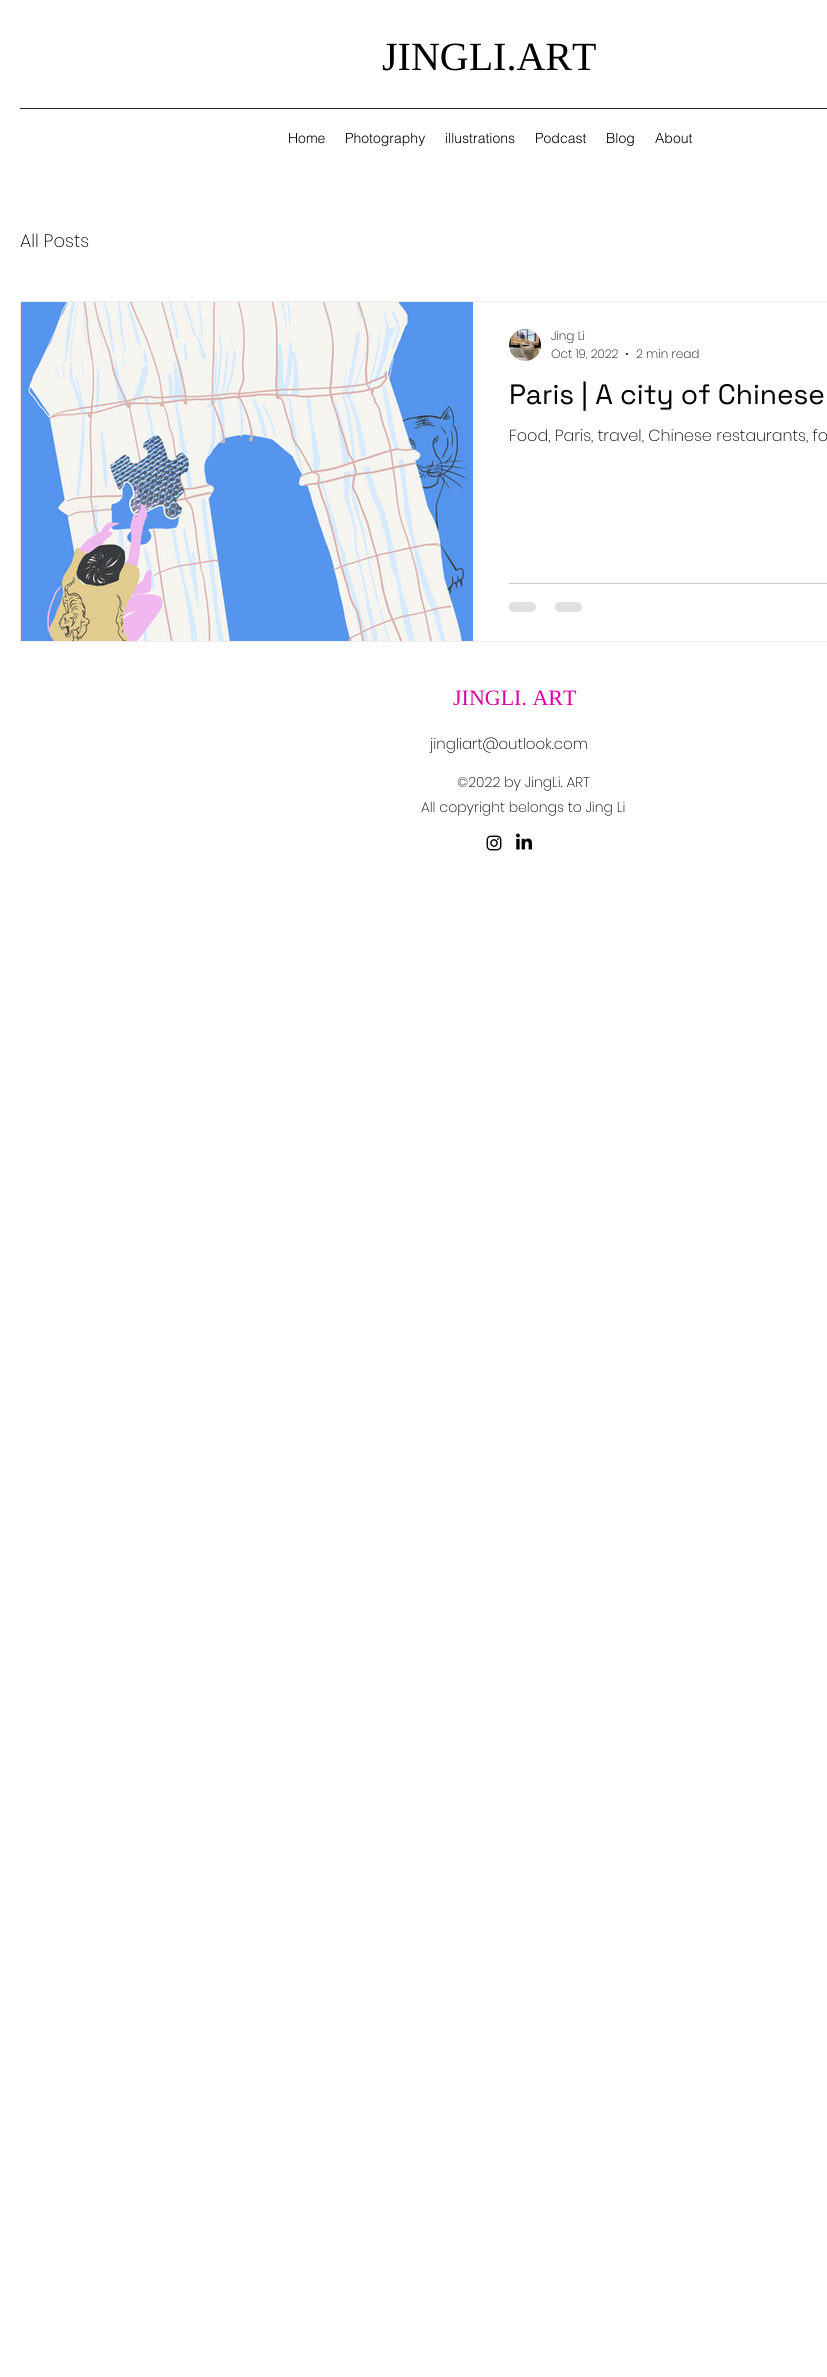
import math
import cairo


def round_path(ctx, x, y, w, h, r):
	ctx.new_sub_path()
	for i, (u, v) in enumerate([(x + w - r, y + h - r), (x + r, y + h - r), (x + r, y + r), (x + w - r, y + r)]):
		ctx.arc(u, v, r, i * math.pi / 2, (i + 1) * math.pi / 2)
	ctx.close_path()

def paste(ctx, path, x, y, w, h):
	ctx.save()
	ctx.set_source_surface(cairo.ImageSurface.create_from_png(path), x, y)
	ctx.rectangle(x, y, w, h)
	ctx.fill()
	ctx.restore()

def draw(ctx):
	ctx.set_source_rgb(1, 1, 1)
	ctx.paint()
	ctx.select_font_face('Liberation Serif')
	ctx.set_font_size(40)
	ctx.set_source_rgb(0, 0, 0)
	ctx.move_to(382, 70)
	ctx.show_text('JINGLI.ART')
	ctx.set_source_rgb(0.149, 0.149, 0.149)
	ctx.rectangle(20, 108, 807, 1)
	ctx.fill()
	ctx.select_font_face('helvetica Light')
	ctx.set_font_size(14)
	ctx.set_source_rgb(0, 0, 0)
	for x, y, s in [
		(288, 143, 'Home'),
		(345, 143, 'Photography'),
		(445, 143, 'illustrations'),
		(535, 143, 'Podcast'),
		(606, 143, 'Blog'),
		(655, 143, 'About'),
	]:
		ctx.move_to(x, y)
		ctx.show_text(s)
	ctx.select_font_face('Poppins ExtraLight')
	ctx.set_font_size(18)
	ctx.move_to(20, 247)
	ctx.show_text('All Posts')
	ctx.rectangle(20.5, 301.5, 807, 340)
	ctx.set_source_rgb(0.933, 0.925, 0.925)
	ctx.set_line_width(1)
	ctx.stroke()
	paste(ctx, 'media/1.png', 21, 302, 452, 339)
	paste(ctx, 'media/2.png', 509, 329, 32, 32)
	ctx.set_font_size(12)
	ctx.set_source_rgb(0, 0, 0)
	ctx.move_to(551, 340)
	ctx.show_text('Jing Li')
	ctx.move_to(551, 358)
	ctx.show_text('Oct 19, 2022')
	ctx.new_path()
	ctx.arc(627, 354, 1, 0, 2 * math.pi)
	ctx.fill()
	ctx.move_to(636, 358)
	ctx.show_text('2 min read')
	ctx.select_font_face('Space Grotesk')
	ctx.set_font_size(28)
	ctx.move_to(509, 404)
	ctx.show_text('Paris | A city of Chinese')
	ctx.select_font_face('Poppins ExtraLight')
	ctx.set_font_size(16)
	ctx.move_to(509, 441)
	ctx.show_text('Food, Paris, travel, Chinese restaurants, fo')
	ctx.set_source_rgb(0.8, 0.8, 0.8)
	ctx.rectangle(509, 583, 318, 1)
	ctx.fill()
	ctx.set_source_rgb(0.878, 0.878, 0.878)
	round_path(ctx, 509, 602, 27, 10, 5)
	ctx.fill()
	round_path(ctx, 555, 602, 27, 10, 5)
	ctx.fill()
	ctx.select_font_face('Liberation Serif')
	ctx.set_font_size(22)
	ctx.set_source_rgb(0.859, 0, 0.631)
	ctx.move_to(453, 705)
	ctx.show_text('JINGLI. ART')
	ctx.select_font_face('Poppins ExtraLight')
	ctx.set_font_size(15)
	ctx.set_source_rgb(0, 0, 0)
	ctx.move_to(430, 749)
	ctx.show_text('jingliart@outlook.com')
	ctx.set_font_size(14)
	ctx.move_to(457, 787)
	ctx.show_text('©2022 by JingLi. ART')
	ctx.move_to(421, 812)
	ctx.show_text('All copyright belongs to Jing Li')
	paste(ctx, 'media/3.png', 486, 835, 16, 16)
	paste(ctx, 'media/4.png', 515, 833, 18, 17)


surface = cairo.ImageSurface(cairo.FORMAT_RGB24, 827, 2377)
ctx = cairo.Context(surface)
options = cairo.FontOptions()
options.set_hint_metrics(cairo.HINT_METRICS_OFF)
options.set_hint_style(cairo.HINT_STYLE_NONE)
ctx.set_font_options(options)
ctx.set_miter_limit(4)
draw(ctx)
surface.write_to_png('image.png')
